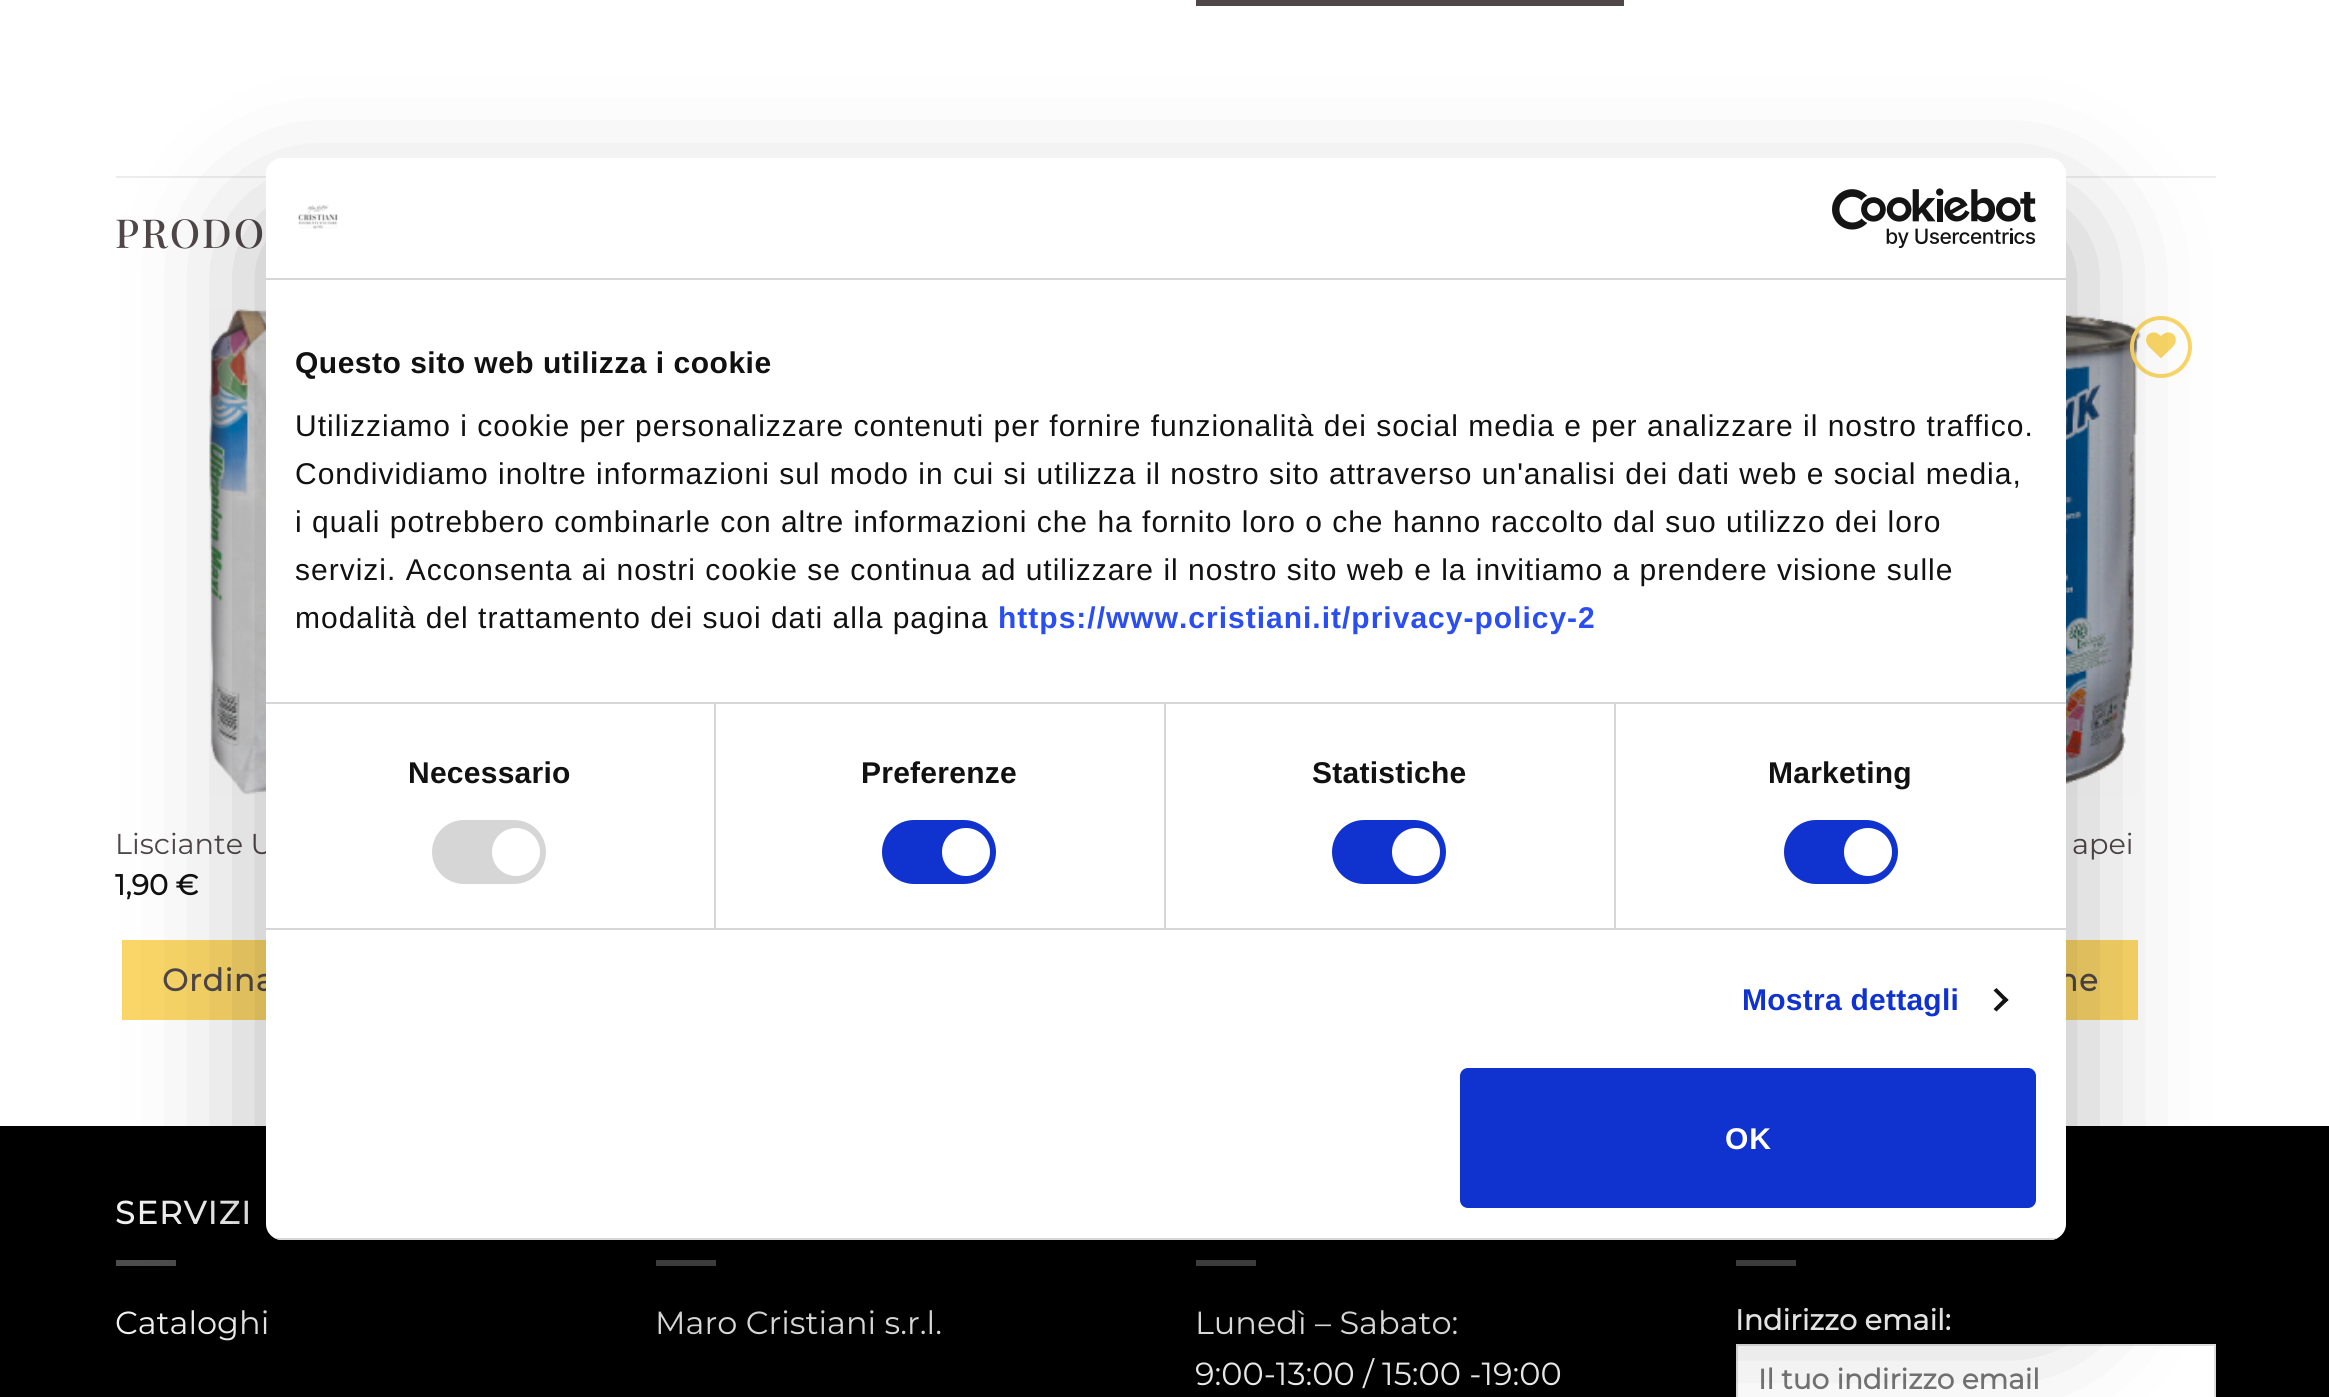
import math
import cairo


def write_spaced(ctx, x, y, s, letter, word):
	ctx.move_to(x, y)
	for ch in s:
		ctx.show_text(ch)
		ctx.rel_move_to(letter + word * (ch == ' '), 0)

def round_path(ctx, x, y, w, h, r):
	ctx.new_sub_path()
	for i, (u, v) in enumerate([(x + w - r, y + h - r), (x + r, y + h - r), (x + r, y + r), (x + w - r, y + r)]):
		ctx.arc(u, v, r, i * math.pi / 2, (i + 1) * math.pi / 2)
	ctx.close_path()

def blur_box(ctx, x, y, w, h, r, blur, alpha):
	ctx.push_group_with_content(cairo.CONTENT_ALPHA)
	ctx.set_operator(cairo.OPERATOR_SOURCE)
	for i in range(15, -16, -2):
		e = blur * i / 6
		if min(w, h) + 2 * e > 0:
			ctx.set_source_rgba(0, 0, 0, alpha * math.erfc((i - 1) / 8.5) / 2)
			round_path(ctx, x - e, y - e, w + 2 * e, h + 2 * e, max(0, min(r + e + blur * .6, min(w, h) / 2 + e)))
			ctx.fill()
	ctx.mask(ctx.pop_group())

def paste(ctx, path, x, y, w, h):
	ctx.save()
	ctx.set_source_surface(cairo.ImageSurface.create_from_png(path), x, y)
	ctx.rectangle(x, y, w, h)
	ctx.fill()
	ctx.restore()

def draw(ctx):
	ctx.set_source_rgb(1, 1, 1)
	ctx.paint()
	ctx.set_source_rgb(0.314, 0.282, 0.282)
	ctx.rectangle(1196, 0, 428, 6)
	ctx.fill()
	ctx.set_source_rgb(0.925, 0.925, 0.925)
	ctx.rectangle(116, 176, 2100, 2)
	ctx.fill()
	ctx.select_font_face('Playfair Display Medium')
	ctx.set_font_size(40)
	ctx.set_source_rgb(0.314, 0.282, 0.282)
	write_spaced(ctx, 115, 248, 'PRODO', 2, 0)
	paste(ctx, 'media/1.png', 209, 309, 57, 486)
	ctx.select_font_face('Montserrat Thin')
	ctx.set_font_size(28.75)
	ctx.move_to(115, 854)
	ctx.show_text('Lisciante U')
	ctx.select_font_face('Montserrat', cairo.FONT_SLANT_NORMAL, cairo.FONT_WEIGHT_BOLD)
	ctx.set_source_rgb(0.067, 0.067, 0.067)
	ctx.move_to(115, 895)
	ctx.show_text('1,90 €')
	ctx.set_source_rgb(0.984, 0.843, 0.408)
	ctx.rectangle(122, 940, 144, 80)
	ctx.fill()
	ctx.set_font_size(31)
	ctx.set_source_rgb(0.314, 0.282, 0.282)
	write_spaced(ctx, 162, 991, 'Ordina', 1, 0)
	paste(ctx, 'media/2.png', 2066, 310, 75, 486)
	ctx.arc(2161, 347, 29, 0, 2 * math.pi)
	ctx.set_source_rgb(0.984, 0.843, 0.408)
	ctx.set_line_width(4)
	ctx.stroke()
	paste(ctx, 'media/3.png', 2146, 332, 30, 26)
	ctx.select_font_face('Montserrat Thin')
	ctx.set_font_size(28.75)
	ctx.set_source_rgb(0.314, 0.282, 0.282)
	ctx.move_to(2072, 854)
	ctx.show_text('apei')
	ctx.set_source_rgb(0.984, 0.843, 0.408)
	ctx.rectangle(2066, 940, 72, 80)
	ctx.fill()
	ctx.select_font_face('Montserrat', cairo.FONT_SLANT_NORMAL, cairo.FONT_WEIGHT_BOLD)
	ctx.set_font_size(31)
	ctx.set_source_rgb(0.314, 0.282, 0.282)
	write_spaced(ctx, 2057, 991, 'ne', 1, 0)
	ctx.set_source_rgb(0, 0, 0)
	ctx.rectangle(0, 1126, 2329, 271)
	ctx.fill()
	ctx.set_font_size(32)
	ctx.set_source_rgb(0.945, 0.945, 0.945)
	write_spaced(ctx, 115, 1224, 'SERVIZI', 1.5, 0)
	ctx.set_source_rgb(0.302, 0.302, 0.302)
	ctx.rectangle(116, 1260, 60, 6)
	ctx.fill()
	ctx.select_font_face('Montserrat Thin')
	ctx.set_source_rgb(0.945, 0.945, 0.945)
	ctx.move_to(115, 1334)
	ctx.show_text('Cataloghi')
	ctx.set_source_rgb(0.302, 0.302, 0.302)
	ctx.rectangle(656, 1260, 60, 6)
	ctx.fill()
	ctx.set_source_rgb(0.945, 0.945, 0.945)
	ctx.move_to(655, 1334)
	ctx.show_text('Maro Cristiani s.r.l.')
	ctx.set_source_rgb(0.302, 0.302, 0.302)
	ctx.rectangle(1196, 1260, 60, 6)
	ctx.fill()
	ctx.set_source_rgb(0.945, 0.945, 0.945)
	ctx.move_to(1195, 1334)
	ctx.show_text('Lunedì – Sabato:')
	ctx.move_to(1195, 1385)
	ctx.show_text('9:00-13:00 / 15:00 -19:00')
	ctx.set_source_rgb(0.302, 0.302, 0.302)
	ctx.rectangle(1736, 1260, 60, 6)
	ctx.fill()
	ctx.select_font_face('Montserrat', cairo.FONT_SLANT_NORMAL, cairo.FONT_WEIGHT_BOLD)
	ctx.set_font_size(28.75)
	ctx.set_source_rgb(1, 1, 1)
	ctx.move_to(1735, 1330)
	ctx.show_text('Indirizzo email:')
	ctx.rectangle(1737, 1345, 478, 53)
	ctx.fill_preserve()
	ctx.set_source_rgb(0.867, 0.867, 0.867)
	ctx.set_line_width(2)
	ctx.stroke()
	ctx.set_font_size(28)
	ctx.set_source_rgb(0.459, 0.459, 0.459)
	ctx.move_to(1758, 1389)
	ctx.show_text('Il tuo indirizzo email')
	ctx.set_source_rgb(0, 0, 0)
	blur_box(ctx, 266, 222, 1800, 1082, 16, 68, 0.3)
	ctx.set_source_rgb(1, 1, 1)
	round_path(ctx, 266, 158, 1800, 1082, 16)
	ctx.fill()
	ctx.set_source_rgb(0.839, 0.839, 0.839)
	ctx.rectangle(266, 278, 1800, 2)
	ctx.fill()
	paste(ctx, 'media/4.png', 298, 204, 40, 25)
	paste(ctx, 'media/5.png', 1832, 188, 204, 60)
	ctx.rectangle(266, 702, 1800, 2)
	ctx.fill()
	ctx.select_font_face('Liberation Sans', cairo.FONT_SLANT_NORMAL, cairo.FONT_WEIGHT_BOLD)
	ctx.set_font_size(30)
	ctx.set_source_rgb(0.067, 0.067, 0.067)
	write_spaced(ctx, 295, 373, 'Questo sito web utilizza i cookie', 0.5, 0)
	ctx.select_font_face('Liberation Sans')
	for x, y, s in [
		(295, 436, 'Utilizziamo i cookie per personalizzare contenuti per fornire funzionalità dei social media e per analizzare il nostro traffico.'),
		(295, 484, 'Condividiamo inoltre informazioni sul modo in cui si utilizza il nostro sito attraverso un\'analisi dei dati web e social media,'),
		(295, 532, 'i quali potrebbero combinarle con altre informazioni che ha fornito loro o che hanno raccolto dal suo utilizzo dei loro'),
		(295, 580, 'servizi. Acconsenta ai nostri cookie se continua ad utilizzare il nostro sito web e la invitiamo a prendere visione sulle'),
		(295, 628, 'modalità del trattamento dei suoi dati alla pagina'),
	]:
		write_spaced(ctx, x, y, s, 1, 0)
	ctx.select_font_face('Liberation Sans', cairo.FONT_SLANT_NORMAL, cairo.FONT_WEIGHT_BOLD)
	ctx.set_source_rgb(0.165, 0.306, 0.937)
	write_spaced(ctx, 998, 628, 'https://www.cristiani.it/privacy-policy-2', 1, 0)
	ctx.set_source_rgb(0.839, 0.839, 0.839)
	ctx.rectangle(266, 928, 1800, 2)
	ctx.fill()
	ctx.rectangle(714, 704, 2, 224)
	ctx.fill()
	ctx.set_source_rgb(0.067, 0.067, 0.067)
	write_spaced(ctx, 408, 783, 'Necessario', 0.25, 0)
	ctx.set_source_rgb(0.839, 0.839, 0.839)
	round_path(ctx, 432, 820, 114, 64, 32)
	ctx.fill()
	ctx.set_source_rgb(1, 1, 1)
	ctx.arc(516, 852, 24, 0, 2 * math.pi)
	ctx.fill()
	ctx.set_source_rgb(0.839, 0.839, 0.839)
	ctx.rectangle(1164, 704, 2, 224)
	ctx.fill()
	ctx.set_source_rgb(0.067, 0.067, 0.067)
	write_spaced(ctx, 861, 783, 'Preferenze', 0.25, 0)
	ctx.set_source_rgb(0.063, 0.196, 0.812)
	round_path(ctx, 882, 820, 114, 64, 32)
	ctx.fill()
	ctx.set_source_rgb(1, 1, 1)
	ctx.arc(966, 852, 24, 0, 2 * math.pi)
	ctx.fill()
	ctx.set_source_rgb(0.839, 0.839, 0.839)
	ctx.rectangle(1614, 704, 2, 224)
	ctx.fill()
	ctx.set_source_rgb(0.067, 0.067, 0.067)
	write_spaced(ctx, 1312, 783, 'Statistiche', 0.25, 0)
	ctx.set_source_rgb(0.063, 0.196, 0.812)
	round_path(ctx, 1332, 820, 114, 64, 32)
	ctx.fill()
	ctx.set_source_rgb(1, 1, 1)
	ctx.arc(1416, 852, 24, 0, 2 * math.pi)
	ctx.fill()
	ctx.set_source_rgb(0.067, 0.067, 0.067)
	write_spaced(ctx, 1768, 783, 'Marketing', 0.25, 0)
	ctx.set_source_rgb(0.063, 0.196, 0.812)
	round_path(ctx, 1784, 820, 114, 64, 32)
	ctx.fill()
	ctx.set_source_rgb(1, 1, 1)
	ctx.arc(1868, 852, 24, 0, 2 * math.pi)
	ctx.fill()
	ctx.set_source_rgb(0.063, 0.196, 0.812)
	write_spaced(ctx, 1742, 1010, 'Mostra dettagli', 0.25, 0)
	ctx.set_source_rgb(0.078, 0.078, 0.078)
	ctx.new_path()
	ctx.move_to(1996.5, 988)
	ctx.line_to(2008.5, 1000)
	ctx.line_to(2005.5, 1002.5)
	ctx.line_to(1993.5, 990.5)
	ctx.close_path()
	ctx.fill()
	ctx.new_path()
	ctx.move_to(2005.5, 997)
	ctx.line_to(2008.5, 1000)
	ctx.line_to(1996.5, 1011.5)
	ctx.line_to(1993.5, 1009)
	ctx.close_path()
	ctx.fill()
	ctx.save()
	round_path(ctx, 266, 158, 1800, 1082, 16)
	ctx.clip()
	ctx.set_source_rgb(0.839, 0.839, 0.839)
	ctx.rectangle(266, 1238, 1800, 2)
	ctx.fill()
	ctx.restore()
	ctx.set_source_rgb(0.063, 0.196, 0.812)
	round_path(ctx, 1462, 1070, 572, 136, 6)
	ctx.fill_preserve()
	ctx.set_line_width(4)
	ctx.stroke()
	ctx.set_source_rgb(1, 1, 1)
	write_spaced(ctx, 1725, 1149, 'OK', 1, 0)


surface = cairo.ImageSurface(cairo.FORMAT_RGB24, 2329, 1397)
ctx = cairo.Context(surface)
options = cairo.FontOptions()
options.set_hint_metrics(cairo.HINT_METRICS_OFF)
options.set_hint_style(cairo.HINT_STYLE_NONE)
ctx.set_font_options(options)
ctx.set_miter_limit(4)
draw(ctx)
surface.write_to_png('image.png')
